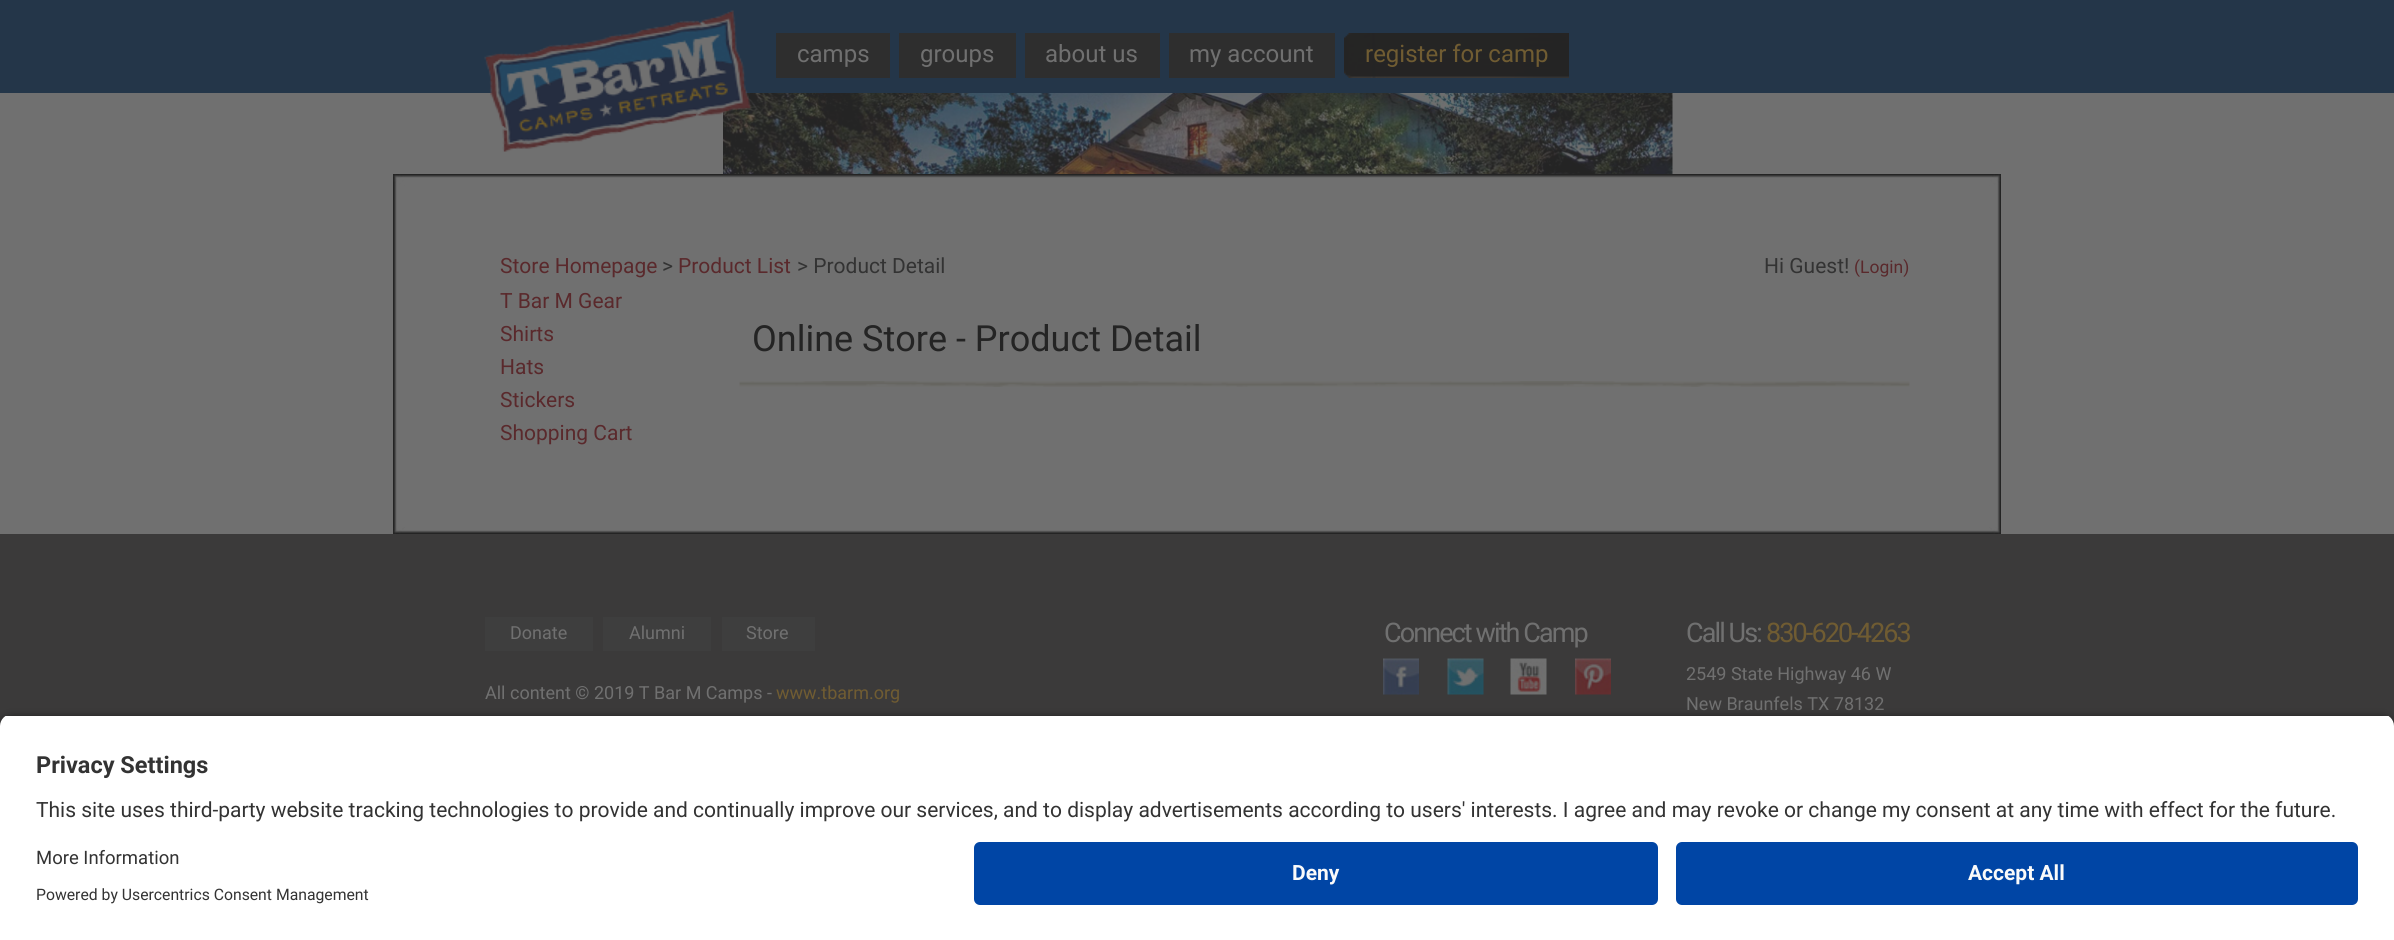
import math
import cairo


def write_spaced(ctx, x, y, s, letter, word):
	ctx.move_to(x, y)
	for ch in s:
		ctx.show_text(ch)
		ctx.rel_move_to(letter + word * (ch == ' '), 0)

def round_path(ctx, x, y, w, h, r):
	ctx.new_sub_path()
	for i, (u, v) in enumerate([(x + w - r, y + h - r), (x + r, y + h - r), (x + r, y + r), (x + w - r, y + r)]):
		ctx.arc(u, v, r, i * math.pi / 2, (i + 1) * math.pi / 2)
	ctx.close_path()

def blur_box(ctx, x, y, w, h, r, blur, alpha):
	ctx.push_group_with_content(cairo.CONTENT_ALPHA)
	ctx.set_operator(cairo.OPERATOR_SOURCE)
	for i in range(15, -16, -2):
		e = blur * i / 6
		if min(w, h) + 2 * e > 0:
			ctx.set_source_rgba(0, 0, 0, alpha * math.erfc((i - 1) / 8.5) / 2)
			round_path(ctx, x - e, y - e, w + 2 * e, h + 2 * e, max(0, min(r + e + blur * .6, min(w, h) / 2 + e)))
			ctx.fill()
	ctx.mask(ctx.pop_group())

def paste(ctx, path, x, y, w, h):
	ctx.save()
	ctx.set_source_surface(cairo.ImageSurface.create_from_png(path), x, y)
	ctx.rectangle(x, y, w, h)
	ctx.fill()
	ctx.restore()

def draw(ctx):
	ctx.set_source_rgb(0.439, 0.439, 0.439)
	ctx.paint()
	ctx.set_source_rgb(0.231, 0.227, 0.227)
	ctx.rectangle(0, 534, 2394, 192)
	ctx.fill()
	ctx.set_source_rgb(0.141, 0.212, 0.286)
	ctx.rectangle(0, 0, 2394, 93)
	ctx.fill()
	paste(ctx, 'media/3.png', 723, 93, 950, 81)
	paste(ctx, 'media/1.png', 484, 10, 268, 142)
	ctx.set_source_rgb(0.18, 0.18, 0.18)
	ctx.rectangle(776, 33, 114, 45)
	ctx.fill()
	ctx.select_font_face('Roboto')
	ctx.set_font_size(24)
	ctx.set_source_rgb(0.439, 0.439, 0.439)
	ctx.move_to(797, 62)
	ctx.show_text('camps')
	ctx.set_source_rgb(0.18, 0.18, 0.18)
	ctx.rectangle(899, 33, 117, 45)
	ctx.fill()
	ctx.set_source_rgb(0.439, 0.439, 0.439)
	ctx.move_to(920, 62)
	ctx.show_text('groups')
	ctx.set_source_rgb(0.18, 0.18, 0.18)
	ctx.rectangle(1025, 33, 135, 45)
	ctx.fill()
	ctx.set_source_rgb(0.439, 0.439, 0.439)
	ctx.move_to(1045, 62)
	ctx.show_text('about us')
	ctx.set_source_rgb(0.18, 0.18, 0.18)
	ctx.rectangle(1169, 33, 166, 45)
	ctx.fill()
	ctx.set_source_rgb(0.439, 0.439, 0.439)
	ctx.move_to(1189, 62)
	ctx.show_text('my account')
	paste(ctx, 'media/2.png', 1344, 33, 225, 45)
	ctx.set_source_rgb(0.439, 0.361, 0.196)
	ctx.move_to(1365, 62)
	ctx.show_text('register for camp')
	paste(ctx, 'media/4.png', 393, 174, 1608, 353)
	paste(ctx, 'media/5.png', 393, 527, 1608, 7)
	ctx.set_font_size(21)
	ctx.set_source_rgb(0.353, 0.161, 0.173)
	ctx.move_to(500, 273)
	ctx.show_text('Store Homepage')
	ctx.set_source_rgb(0.2, 0.2, 0.2)
	ctx.move_to(662, 273)
	ctx.show_text('>')
	ctx.set_source_rgb(0.353, 0.161, 0.173)
	ctx.move_to(678, 273)
	ctx.show_text('Product List')
	ctx.set_source_rgb(0.2, 0.2, 0.2)
	ctx.move_to(797, 273)
	ctx.show_text('> Product Detail')
	ctx.move_to(1764, 273)
	ctx.show_text('Hi Guest!')
	ctx.set_font_size(17.5)
	ctx.set_source_rgb(0.353, 0.161, 0.173)
	ctx.move_to(1854, 273)
	ctx.show_text('(Login)')
	ctx.set_font_size(21)
	for x, y, s in [
		(500, 308, 'T Bar M Gear'),
		(500, 341, 'Shirts'),
		(500, 374, 'Hats'),
		(500, 407, 'Stickers'),
		(500, 440, 'Shopping Cart'),
	]:
		ctx.move_to(x, y)
		ctx.show_text(s)
	paste(ctx, 'media/6.png', 739, 381, 1171, 6)
	ctx.set_font_size(36)
	ctx.set_source_rgb(0.141, 0.141, 0.141)
	ctx.move_to(752, 351)
	ctx.show_text('Online Store - Product Detail')
	ctx.set_source_rgb(0.243, 0.243, 0.243)
	ctx.rectangle(485, 617, 108, 34)
	ctx.fill()
	ctx.set_font_size(18)
	ctx.set_source_rgb(0.439, 0.439, 0.439)
	ctx.move_to(510, 639)
	ctx.show_text('Donate')
	ctx.set_source_rgb(0.243, 0.243, 0.243)
	ctx.rectangle(603, 617, 108, 34)
	ctx.fill()
	ctx.set_source_rgb(0.439, 0.439, 0.439)
	ctx.move_to(629, 639)
	ctx.show_text('Alumni')
	ctx.set_source_rgb(0.243, 0.243, 0.243)
	ctx.rectangle(722, 617, 93, 34)
	ctx.fill()
	ctx.set_source_rgb(0.439, 0.439, 0.439)
	ctx.move_to(746, 639)
	ctx.show_text('Store')
	ctx.set_font_size(27)
	write_spaced(ctx, 1384, 642, 'Connect with Camp', -1.9, 0)
	paste(ctx, 'media/7.png', 1383, 658, 36, 37)
	paste(ctx, 'media/8.png', 1447, 658, 37, 37)
	paste(ctx, 'media/9.png', 1510, 658, 37, 37)
	paste(ctx, 'media/10.png', 1575, 658, 36, 37)
	write_spaced(ctx, 1686, 642, 'Call Us:', -1.9, 0)
	ctx.set_source_rgb(0.439, 0.361, 0.196)
	write_spaced(ctx, 1766, 642, '830-620-4263', -1.9, 0)
	ctx.set_font_size(18)
	ctx.set_source_rgb(0.439, 0.439, 0.439)
	for x, y, s in [
		(1686, 680, '2549 State Highway 46 W'),
		(1686, 710, 'New Braunfels TX 78132'),
		(485, 699, 'All content © 2019 T Bar M Camps -'),
	]:
		ctx.move_to(x, y)
		ctx.show_text(s)
	ctx.set_source_rgb(0.439, 0.361, 0.196)
	ctx.move_to(776, 699)
	ctx.show_text('www.tbarm.org')
	ctx.set_source_rgb(0, 0, 0)
	blur_box(ctx, 0, 719, 2394, 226, 12, 5, 0.8)
	ctx.save()
	ctx.new_path()
	ctx.move_to(12, 714)
	ctx.line_to(2382, 714)
	ctx.curve_to(2388.5, 714, 2394, 719.5, 2394, 726)
	ctx.line_to(2394, 830)
	ctx.line_to(0, 830)
	ctx.line_to(0, 726)
	ctx.curve_to(0, 719.5, 5.5, 714, 12, 714)
	ctx.close_path()
	ctx.clip()
	ctx.set_source_rgb(1, 1, 1)
	ctx.rectangle(0, 716, 2394, 114)
	ctx.fill()
	ctx.restore()
	ctx.select_font_face('Roboto', cairo.FONT_SLANT_NORMAL, cairo.FONT_WEIGHT_BOLD)
	ctx.set_font_size(23.5)
	ctx.set_source_rgb(0.2, 0.2, 0.2)
	ctx.move_to(36, 773)
	ctx.show_text('Privacy Settings')
	ctx.select_font_face('Roboto')
	ctx.set_font_size(21)
	ctx.move_to(36, 817)
	ctx.show_text('This site uses third-party website tracking technologies to provide and continually improve our services, and to display advertisements according to users\' interests. I agree and may revoke or change my consent at any time with effect for the future.')
	ctx.set_source_rgb(1, 1, 1)
	ctx.rectangle(0, 830, 2394, 110)
	ctx.fill()
	ctx.set_font_size(18.5)
	ctx.set_source_rgb(0.2, 0.2, 0.2)
	ctx.move_to(36, 864)
	ctx.show_text('More Information')
	ctx.set_font_size(15.75)
	ctx.move_to(36, 900)
	ctx.show_text('Powered by Usercentrics Consent Management')
	ctx.set_source_rgb(0, 0.271, 0.647)
	round_path(ctx, 974, 842, 684, 63, 6)
	ctx.fill()
	ctx.select_font_face('Roboto', cairo.FONT_SLANT_NORMAL, cairo.FONT_WEIGHT_BOLD)
	ctx.set_font_size(21)
	ctx.set_source_rgb(0.98, 0.98, 0.98)
	ctx.move_to(1292, 880)
	ctx.show_text('Deny')
	ctx.set_source_rgb(0, 0.271, 0.647)
	round_path(ctx, 1676, 842, 682, 63, 6)
	ctx.fill()
	ctx.set_source_rgb(0.98, 0.98, 0.98)
	ctx.move_to(1968, 880)
	ctx.show_text('Accept All')


surface = cairo.ImageSurface(cairo.FORMAT_RGB24, 2394, 940)
ctx = cairo.Context(surface)
options = cairo.FontOptions()
options.set_hint_metrics(cairo.HINT_METRICS_OFF)
options.set_hint_style(cairo.HINT_STYLE_NONE)
ctx.set_font_options(options)
ctx.set_miter_limit(4)
draw(ctx)
surface.write_to_png('image.png')
